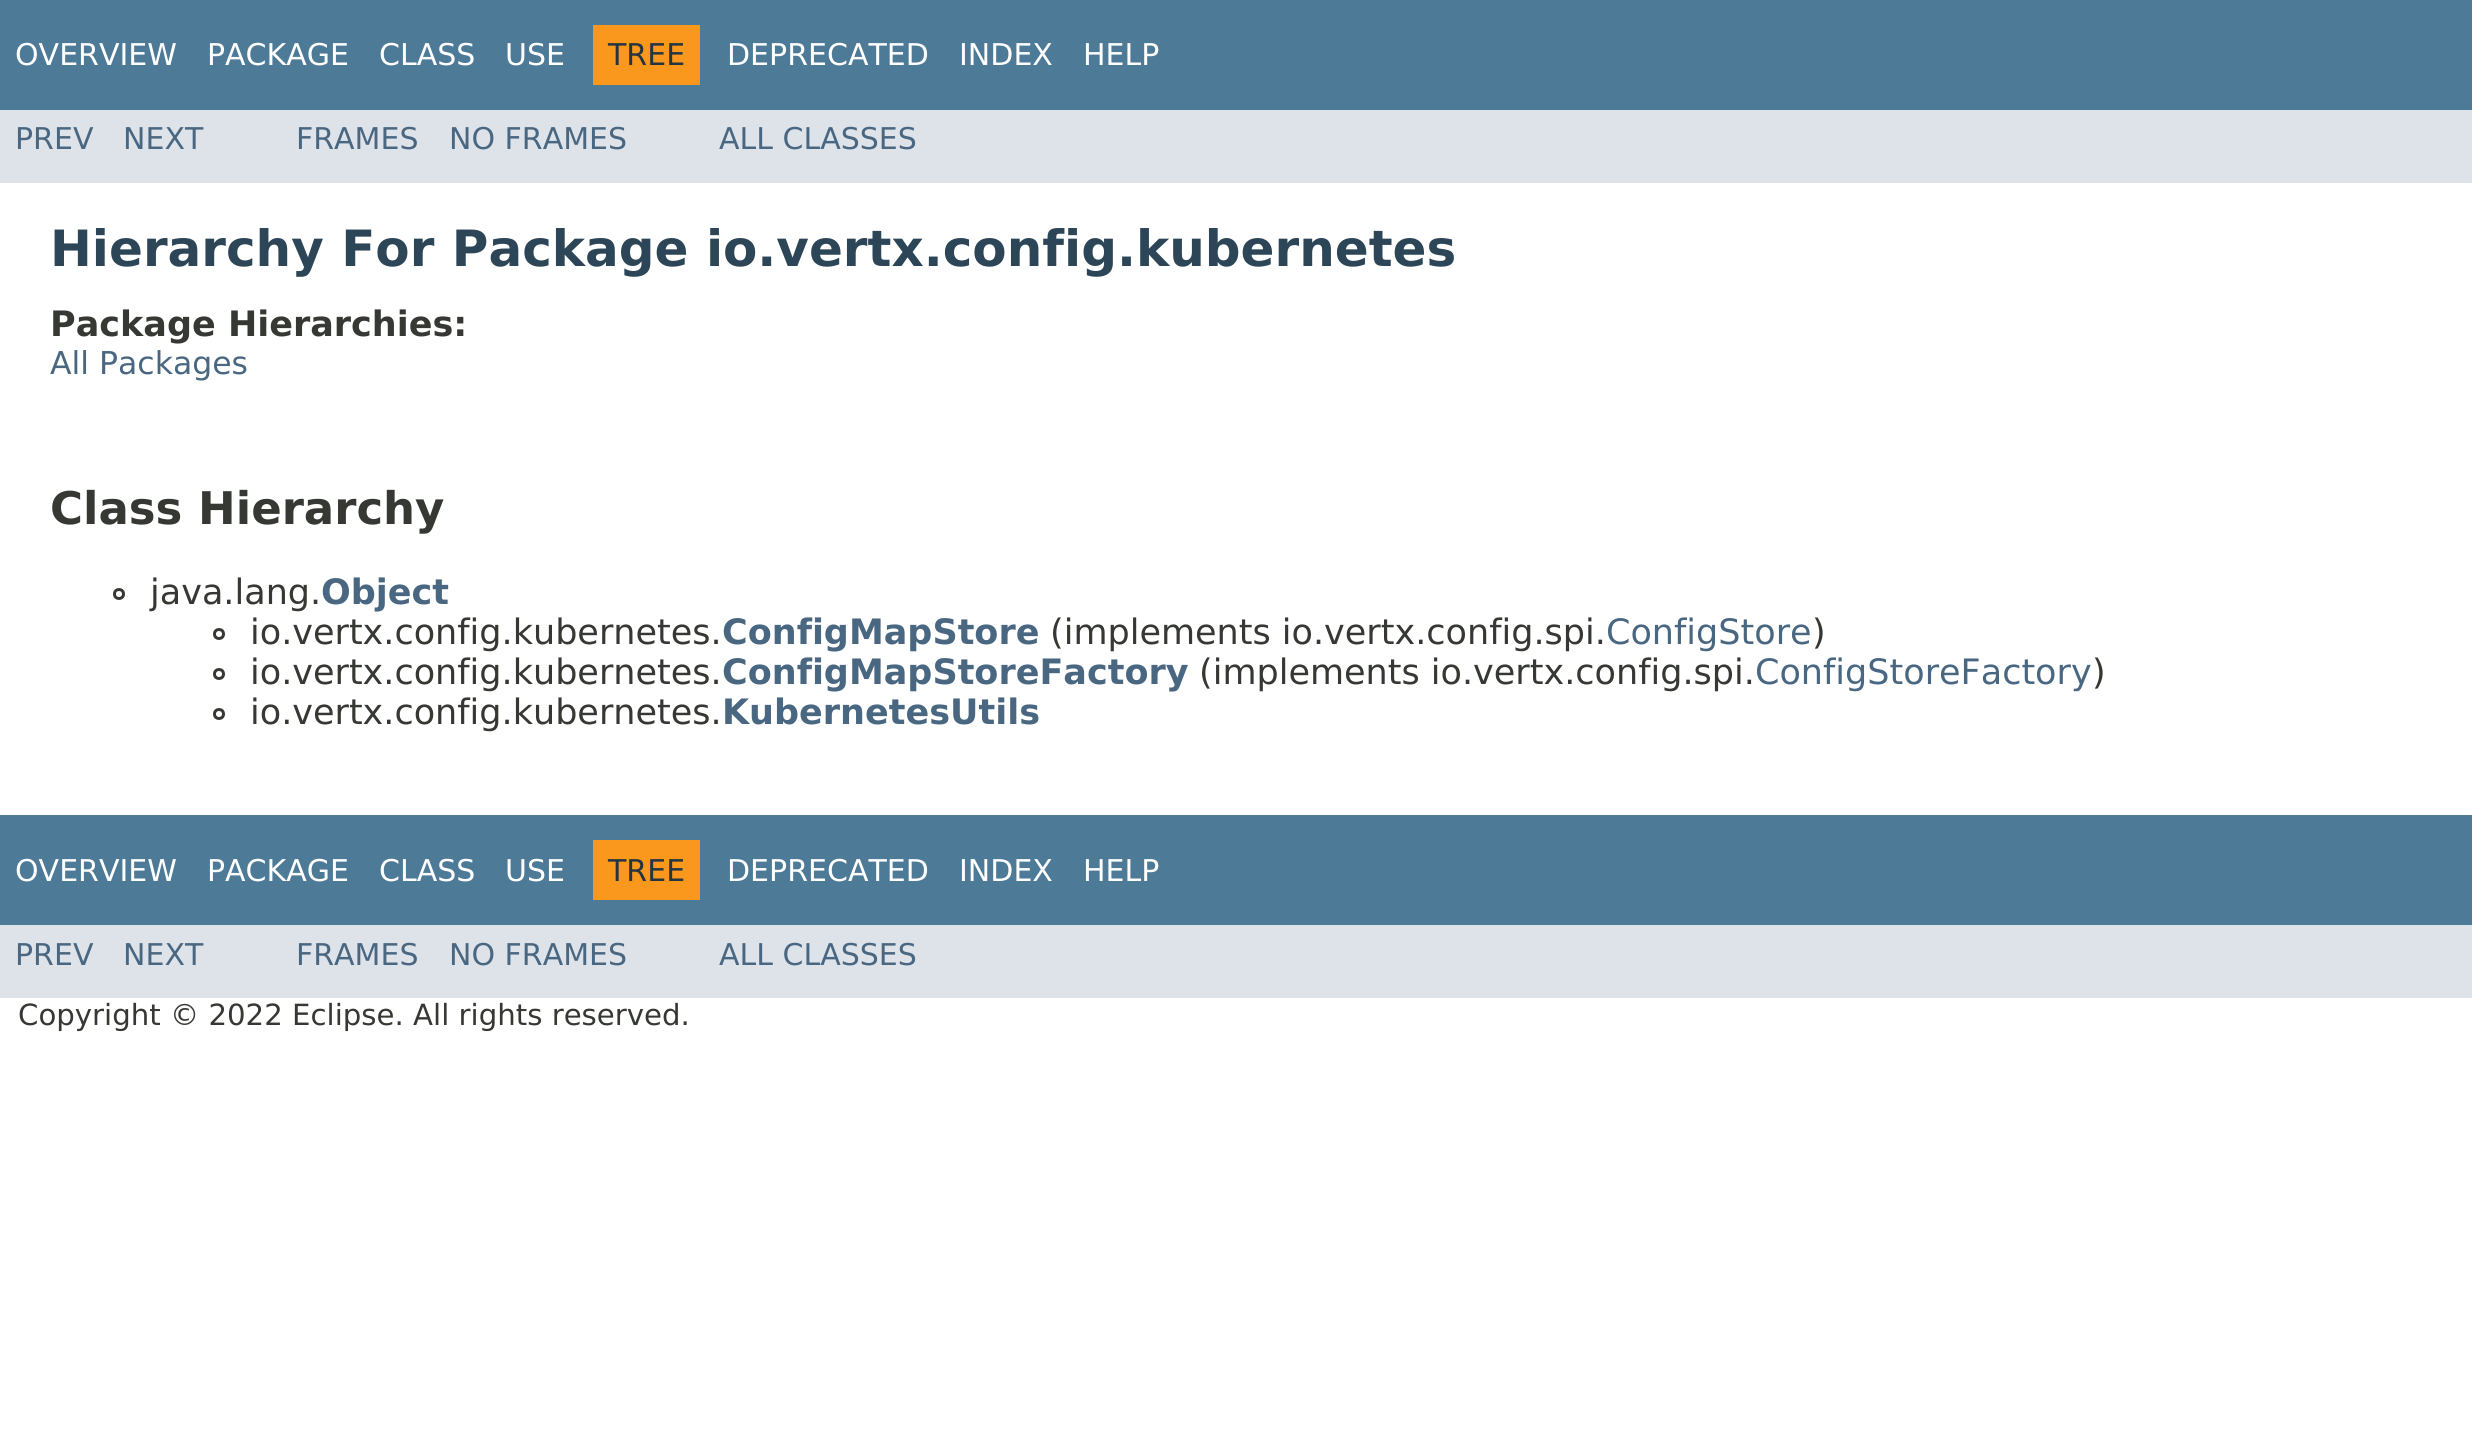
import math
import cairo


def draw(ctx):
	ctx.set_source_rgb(1, 1, 1)
	ctx.paint()
	ctx.set_source_rgb(0.302, 0.478, 0.592)
	ctx.rectangle(0, 0, 2472, 110)
	ctx.fill()
	ctx.select_font_face('DejaVu Sans')
	ctx.set_font_size(30)
	ctx.set_source_rgb(1, 1, 1)
	for x, y, s in [
		(15, 65, 'OVERVIEW'),
		(207, 65, 'PACKAGE'),
		(379, 65, 'CLASS'),
		(505, 65, 'USE'),
	]:
		ctx.move_to(x, y)
		ctx.show_text(s)
	ctx.set_source_rgb(0.973, 0.596, 0.114)
	ctx.rectangle(593, 25, 107, 60)
	ctx.fill()
	ctx.set_source_rgb(0.145, 0.204, 0.255)
	ctx.move_to(608, 65)
	ctx.show_text('TREE')
	ctx.set_source_rgb(1, 1, 1)
	for x, y, s in [
		(727, 65, 'DEPRECATED'),
		(959, 65, 'INDEX'),
		(1083, 65, 'HELP'),
	]:
		ctx.move_to(x, y)
		ctx.show_text(s)
	ctx.set_source_rgb(0.871, 0.89, 0.914)
	ctx.rectangle(0, 110, 2472, 73)
	ctx.fill()
	ctx.set_source_rgb(0.29, 0.404, 0.51)
	for x, y, s in [
		(15, 149, 'PREV'),
		(123, 149, 'NEXT'),
		(296, 149, 'FRAMES'),
		(449, 149, 'NO FRAMES'),
		(719, 149, 'ALL CLASSES'),
	]:
		ctx.move_to(x, y)
		ctx.show_text(s)
	ctx.select_font_face('DejaVu Sans', cairo.FONT_SLANT_NORMAL, cairo.FONT_WEIGHT_BOLD)
	ctx.set_font_size(50)
	ctx.set_source_rgb(0.173, 0.271, 0.341)
	ctx.move_to(50, 266)
	ctx.show_text('Hierarchy For Package io.vertx.config.kubernetes')
	ctx.set_font_size(35)
	ctx.set_source_rgb(0.208, 0.22, 0.2)
	ctx.move_to(50, 336)
	ctx.show_text('Package Hierarchies:')
	ctx.select_font_face('DejaVu Sans')
	ctx.set_font_size(31.5)
	ctx.set_source_rgb(0.29, 0.404, 0.51)
	ctx.move_to(50, 374)
	ctx.show_text('All Packages')
	ctx.select_font_face('DejaVu Sans', cairo.FONT_SLANT_NORMAL, cairo.FONT_WEIGHT_BOLD)
	ctx.set_font_size(45)
	ctx.set_source_rgb(0.208, 0.22, 0.2)
	ctx.move_to(50, 524)
	ctx.show_text('Class Hierarchy')
	ctx.new_path()
	ctx.arc(119, 594, 4.5, 0, 2 * math.pi)
	ctx.set_line_width(3)
	ctx.stroke()
	ctx.select_font_face('DejaVu Sans')
	ctx.set_font_size(35)
	ctx.move_to(150, 604)
	ctx.show_text('java.lang.')
	ctx.select_font_face('DejaVu Sans', cairo.FONT_SLANT_NORMAL, cairo.FONT_WEIGHT_BOLD)
	ctx.set_source_rgb(0.29, 0.404, 0.51)
	ctx.move_to(321, 604)
	ctx.show_text('Object')
	ctx.new_path()
	ctx.arc(219, 634, 4.5, 0, 2 * math.pi)
	ctx.set_source_rgb(0.208, 0.22, 0.2)
	ctx.stroke()
	ctx.select_font_face('DejaVu Sans')
	ctx.move_to(250, 644)
	ctx.show_text('io.vertx.config.kubernetes.')
	ctx.select_font_face('DejaVu Sans', cairo.FONT_SLANT_NORMAL, cairo.FONT_WEIGHT_BOLD)
	ctx.set_source_rgb(0.29, 0.404, 0.51)
	ctx.move_to(722, 644)
	ctx.show_text('ConfigMapStore')
	ctx.select_font_face('DejaVu Sans')
	ctx.set_source_rgb(0.208, 0.22, 0.2)
	ctx.move_to(1050, 644)
	ctx.show_text('(implements io.vertx.config.spi.')
	ctx.set_source_rgb(0.29, 0.404, 0.51)
	ctx.move_to(1606, 644)
	ctx.show_text('ConfigStore')
	ctx.set_source_rgb(0.208, 0.22, 0.2)
	ctx.move_to(1812, 644)
	ctx.show_text(')')
	ctx.new_path()
	ctx.arc(219, 674, 4.5, 0, 2 * math.pi)
	ctx.stroke()
	ctx.move_to(250, 684)
	ctx.show_text('io.vertx.config.kubernetes.')
	ctx.select_font_face('DejaVu Sans', cairo.FONT_SLANT_NORMAL, cairo.FONT_WEIGHT_BOLD)
	ctx.set_source_rgb(0.29, 0.404, 0.51)
	ctx.move_to(722, 684)
	ctx.show_text('ConfigMapStoreFactory')
	ctx.select_font_face('DejaVu Sans')
	ctx.set_source_rgb(0.208, 0.22, 0.2)
	ctx.move_to(1199, 684)
	ctx.show_text('(implements io.vertx.config.spi.')
	ctx.set_source_rgb(0.29, 0.404, 0.51)
	ctx.move_to(1755, 684)
	ctx.show_text('ConfigStoreFactory')
	ctx.set_source_rgb(0.208, 0.22, 0.2)
	ctx.move_to(2092, 684)
	ctx.show_text(')')
	ctx.new_path()
	ctx.arc(219, 714, 4.5, 0, 2 * math.pi)
	ctx.stroke()
	ctx.move_to(250, 724)
	ctx.show_text('io.vertx.config.kubernetes.')
	ctx.select_font_face('DejaVu Sans', cairo.FONT_SLANT_NORMAL, cairo.FONT_WEIGHT_BOLD)
	ctx.set_source_rgb(0.29, 0.404, 0.51)
	ctx.move_to(722, 724)
	ctx.show_text('KubernetesUtils')
	ctx.set_source_rgb(0.302, 0.478, 0.592)
	ctx.rectangle(0, 815, 2472, 110)
	ctx.fill()
	ctx.select_font_face('DejaVu Sans')
	ctx.set_font_size(30)
	ctx.set_source_rgb(1, 1, 1)
	for x, y, s in [
		(15, 881, 'OVERVIEW'),
		(207, 881, 'PACKAGE'),
		(379, 881, 'CLASS'),
		(505, 881, 'USE'),
	]:
		ctx.move_to(x, y)
		ctx.show_text(s)
	ctx.set_source_rgb(0.973, 0.596, 0.114)
	ctx.rectangle(593, 840, 107, 60)
	ctx.fill()
	ctx.set_source_rgb(0.145, 0.204, 0.255)
	ctx.move_to(608, 881)
	ctx.show_text('TREE')
	ctx.set_source_rgb(1, 1, 1)
	for x, y, s in [
		(727, 881, 'DEPRECATED'),
		(959, 881, 'INDEX'),
		(1083, 881, 'HELP'),
	]:
		ctx.move_to(x, y)
		ctx.show_text(s)
	ctx.set_source_rgb(0.871, 0.89, 0.914)
	ctx.rectangle(0, 925, 2472, 73)
	ctx.fill()
	ctx.set_source_rgb(0.29, 0.404, 0.51)
	for x, y, s in [
		(15, 965, 'PREV'),
		(123, 965, 'NEXT'),
		(296, 965, 'FRAMES'),
		(449, 965, 'NO FRAMES'),
		(719, 965, 'ALL CLASSES'),
	]:
		ctx.move_to(x, y)
		ctx.show_text(s)
	ctx.set_font_size(29.2)
	ctx.set_source_rgb(0.208, 0.22, 0.2)
	ctx.move_to(18, 1025)
	ctx.show_text('Copyright © 2022 Eclipse. All rights reserved.')


surface = cairo.ImageSurface(cairo.FORMAT_RGB24, 2472, 1436)
ctx = cairo.Context(surface)
options = cairo.FontOptions()
options.set_hint_metrics(cairo.HINT_METRICS_OFF)
options.set_hint_style(cairo.HINT_STYLE_NONE)
ctx.set_font_options(options)
ctx.set_miter_limit(4)
draw(ctx)
surface.write_to_png('image.png')
